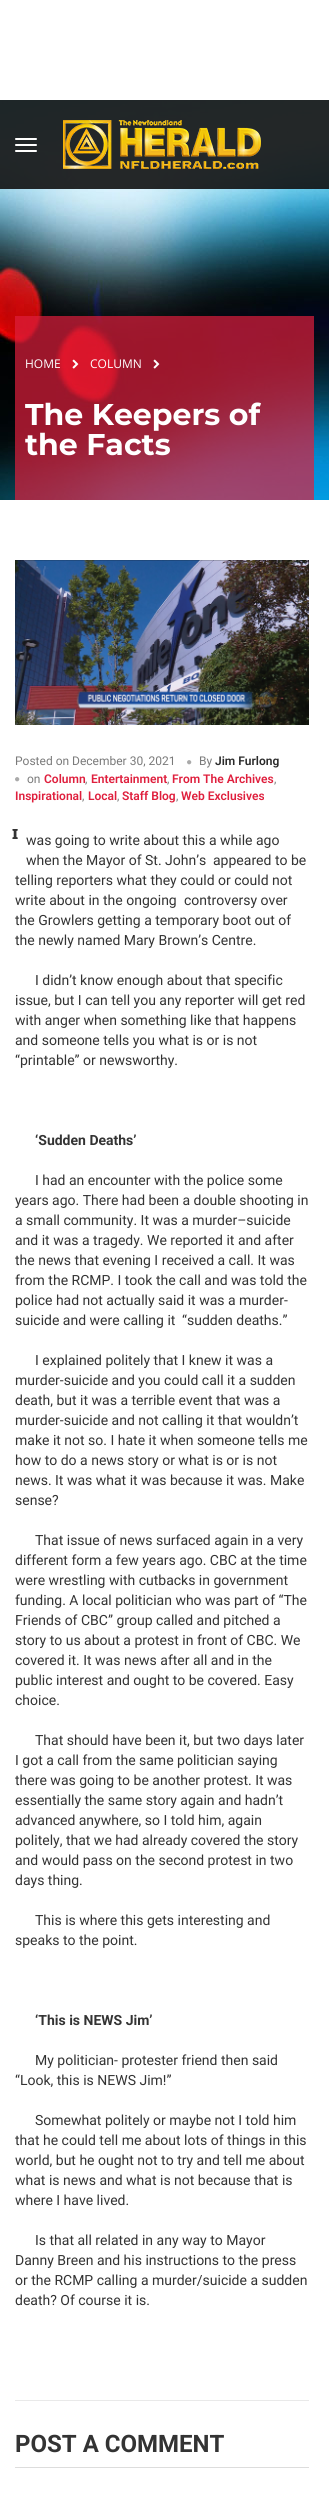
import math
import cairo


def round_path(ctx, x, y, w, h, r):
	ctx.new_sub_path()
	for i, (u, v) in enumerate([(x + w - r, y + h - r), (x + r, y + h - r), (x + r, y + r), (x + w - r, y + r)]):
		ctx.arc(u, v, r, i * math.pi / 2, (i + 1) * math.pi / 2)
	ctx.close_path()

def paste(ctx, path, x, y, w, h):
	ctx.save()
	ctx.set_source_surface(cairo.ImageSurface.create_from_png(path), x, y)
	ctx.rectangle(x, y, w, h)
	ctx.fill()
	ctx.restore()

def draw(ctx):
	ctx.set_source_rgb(1, 1, 1)
	ctx.paint()
	paste(ctx, 'media/2.png', 0, 100, 329, 400)
	ctx.set_source_rgba(0.067, 0.067, 0.067, 0.9)
	ctx.rectangle(0, 100, 329, 89)
	ctx.fill()
	ctx.set_source_rgb(1, 1, 1)
	round_path(ctx, 15, 138, 22, 2, 1)
	ctx.fill()
	round_path(ctx, 15, 144, 22, 2, 1)
	ctx.fill()
	round_path(ctx, 15, 150, 22, 2, 1)
	ctx.fill()
	paste(ctx, 'media/1.png', 63, 120, 198, 49)
	ctx.set_source_rgba(0.875, 0.122, 0.239, 0.7)
	ctx.rectangle(15, 316, 299, 184)
	ctx.fill()
	ctx.select_font_face('Open Sans')
	ctx.set_font_size(12)
	ctx.set_source_rgb(1, 1, 1)
	ctx.move_to(25, 368)
	ctx.show_text('HOME')
	paste(ctx, 'media/3.png', 72, 359, 7, 10)
	ctx.move_to(90, 368)
	ctx.show_text('COLUMN')
	paste(ctx, 'media/4.png', 153, 359, 7, 10)
	ctx.select_font_face('Montserrat', cairo.FONT_SLANT_NORMAL, cairo.FONT_WEIGHT_BOLD)
	ctx.set_font_size(30)
	ctx.move_to(25, 425)
	ctx.show_text('The Keepers of')
	ctx.move_to(25, 455)
	ctx.show_text('the Facts')
	ctx.set_source_rgb(0.914, 0.914, 0.914)
	ctx.rectangle(15, 2400, 294, 1)
	ctx.fill()
	paste(ctx, 'media/5.png', 15, 560, 294, 165)
	ctx.select_font_face('Roboto')
	ctx.set_font_size(12)
	ctx.set_source_rgb(0.478, 0.478, 0.478)
	ctx.move_to(15, 765)
	ctx.show_text('Posted on December 30, 2021')
	paste(ctx, 'media/6.png', 187, 760, 5, 5)
	ctx.move_to(199, 765)
	ctx.show_text('By')
	ctx.select_font_face('Roboto SemiBold')
	ctx.set_source_rgb(0.165, 0.165, 0.165)
	ctx.move_to(215, 765)
	ctx.show_text('Jim Furlong')
	paste(ctx, 'media/6.png', 15, 777, 5, 5)
	ctx.select_font_face('Roboto')
	ctx.set_source_rgb(0.478, 0.478, 0.478)
	ctx.move_to(27, 783)
	ctx.show_text('on')
	ctx.select_font_face('Roboto SemiBold')
	ctx.set_source_rgb(0.875, 0.122, 0.239)
	for x, y, s in [
		(44, 783, 'Column'),
		(91, 783, 'Entertainment'),
		(172, 783, 'From The Archives'),
	]:
		ctx.move_to(x, y)
		ctx.show_text(s)
	ctx.select_font_face('Roboto')
	ctx.set_source_rgb(0.478, 0.478, 0.478)
	for x, y, s in [
		(85, 783, ','),
		(167, 783, ','),
		(274, 783, ','),
	]:
		ctx.move_to(x, y)
		ctx.show_text(s)
	ctx.select_font_face('Roboto SemiBold')
	ctx.set_source_rgb(0.875, 0.122, 0.239)
	ctx.move_to(15, 800)
	ctx.show_text('Inspirational')
	ctx.select_font_face('Roboto')
	ctx.set_source_rgb(0.478, 0.478, 0.478)
	ctx.move_to(82, 800)
	ctx.show_text(',')
	ctx.select_font_face('Roboto SemiBold')
	ctx.set_source_rgb(0.875, 0.122, 0.239)
	ctx.move_to(88, 800)
	ctx.show_text('Local')
	ctx.select_font_face('Roboto')
	ctx.set_source_rgb(0.478, 0.478, 0.478)
	ctx.move_to(117, 800)
	ctx.show_text(',')
	ctx.select_font_face('Roboto SemiBold')
	ctx.set_source_rgb(0.875, 0.122, 0.239)
	ctx.move_to(122, 800)
	ctx.show_text('Staff Blog')
	ctx.select_font_face('Roboto')
	ctx.set_source_rgb(0.478, 0.478, 0.478)
	ctx.move_to(176, 800)
	ctx.show_text(',')
	ctx.select_font_face('Roboto SemiBold')
	ctx.set_source_rgb(0.875, 0.122, 0.239)
	ctx.move_to(181, 800)
	ctx.show_text('Web Exclusives')
	ctx.select_font_face('Noto Sans Black')
	ctx.set_font_size(14)
	ctx.set_source_rgb(0.2, 0.2, 0.2)
	ctx.move_to(12, 839)
	ctx.show_text('I')
	ctx.select_font_face('Roboto')
	for x, y, s in [
		(26, 845, 'was going to write about this a while ago'),
		(26, 865, 'when the Mayor of St. John’s'),
		(213, 865, 'appeared to be'),
		(15, 885, 'telling reporters what they could or could not'),
		(15, 905, 'write about in the ongoing'),
		(184, 905, 'controversy over'),
		(15, 925, 'the Growlers getting a temporary boot out of'),
		(15, 945, 'the newly named Mary Brown’s Centre.'),
		(35, 985, 'I didn’t know enough about that specific'),
		(15, 1005, 'issue, but I can tell you any reporter will get red'),
		(15, 1025, 'with anger when something like that happens'),
		(15, 1045, 'and someone tells you what is or is not'),
		(15, 1065, '“printable” or newsworthy.'),
	]:
		ctx.move_to(x, y)
		ctx.show_text(s)
	ctx.select_font_face('Roboto', cairo.FONT_SLANT_NORMAL, cairo.FONT_WEIGHT_BOLD)
	ctx.move_to(35, 1145)
	ctx.show_text('‘Sudden Deaths’')
	ctx.select_font_face('Roboto')
	for x, y, s in [
		(35, 1185, 'I had an encounter with the police some'),
		(15, 1205, 'years ago. There had been a double shooting in'),
		(15, 1225, 'a small community. It was a murder–suicide'),
		(15, 1245, 'and it was a tragedy. We reported it and after'),
		(15, 1265, 'the news that evening I received a call. It was'),
		(15, 1285, 'from the RCMP. I took the call and was told the'),
		(15, 1305, 'police had not actually said it was a murder-'),
		(15, 1325, 'suicide and were calling it'),
		(182, 1325, '“sudden deaths.”'),
		(35, 1365, 'I explained politely that I knew it was a'),
		(15, 1385, 'murder-suicide and you could call it a sudden'),
		(15, 1405, 'death, but it was a terrible event that was a'),
		(15, 1425, 'murder-suicide and not calling it that wouldn’t'),
		(15, 1445, 'make it not so. I hate it when someone tells me'),
		(15, 1465, 'how to do a news story or what is or is not'),
		(15, 1485, 'news. It was what it was because it was. Make'),
		(15, 1505, 'sense?'),
		(35, 1545, 'That issue of news surfaced again in a very'),
		(15, 1565, 'different form a few years ago. CBC at the time'),
		(15, 1585, 'were wrestling with cutbacks in government'),
		(15, 1605, 'funding. A local politician who was part of “The'),
		(15, 1625, 'Friends of CBC” group called and pitched a'),
		(15, 1645, 'story to us about a protest in front of CBC. We'),
		(15, 1665, 'covered it. It was news after all and in the'),
		(15, 1685, 'public interest and ought to be covered. Easy'),
		(15, 1705, 'choice.'),
		(35, 1745, 'That should have been it, but two days later'),
		(15, 1765, 'I got a call from the same politician saying'),
		(15, 1785, 'there was going to be another protest. It was'),
		(15, 1805, 'essentially the same story again and hadn’t'),
		(15, 1825, 'advanced anywhere, so I told him, again'),
		(15, 1845, 'politely, that we had already covered the story'),
		(15, 1865, 'and would pass on the second protest in two'),
		(15, 1885, 'days thing.'),
		(35, 1925, 'This is where this gets interesting and'),
		(15, 1945, 'speaks to the point.'),
	]:
		ctx.move_to(x, y)
		ctx.show_text(s)
	ctx.select_font_face('Roboto', cairo.FONT_SLANT_NORMAL, cairo.FONT_WEIGHT_BOLD)
	ctx.move_to(35, 2025)
	ctx.show_text('‘This is NEWS Jim’')
	ctx.select_font_face('Roboto')
	for x, y, s in [
		(35, 2065, 'My politician- protester friend then said'),
		(15, 2085, '“Look, this is NEWS Jim!”'),
		(35, 2125, 'Somewhat politely or maybe not I told him'),
		(15, 2145, 'that he could tell me about lots of things in this'),
		(15, 2165, 'world, but he ought not to try and tell me about'),
		(15, 2185, 'what is news and what is not because that is'),
		(15, 2205, 'where I have lived.'),
		(35, 2245, 'Is that all related in any way to Mayor'),
		(15, 2265, 'Danny Breen and his instructions to the press'),
		(15, 2285, 'or the RCMP calling a murder/suicide a sudden'),
		(15, 2305, 'death? Of course it is.'),
	]:
		ctx.move_to(x, y)
		ctx.show_text(s)
	ctx.set_source_rgb(0.867, 0.867, 0.867)
	ctx.rectangle(15, 2467, 294, 1)
	ctx.fill()
	ctx.select_font_face('Roboto', cairo.FONT_SLANT_NORMAL, cairo.FONT_WEIGHT_BOLD)
	ctx.set_font_size(24)
	ctx.set_source_rgb(0.2, 0.2, 0.2)
	ctx.move_to(15, 2452)
	ctx.show_text('POST A COMMENT')


surface = cairo.ImageSurface(cairo.FORMAT_RGB24, 329, 2499)
ctx = cairo.Context(surface)
options = cairo.FontOptions()
options.set_hint_metrics(cairo.HINT_METRICS_OFF)
options.set_hint_style(cairo.HINT_STYLE_NONE)
ctx.set_font_options(options)
ctx.set_miter_limit(4)
draw(ctx)
surface.write_to_png('image.png')
